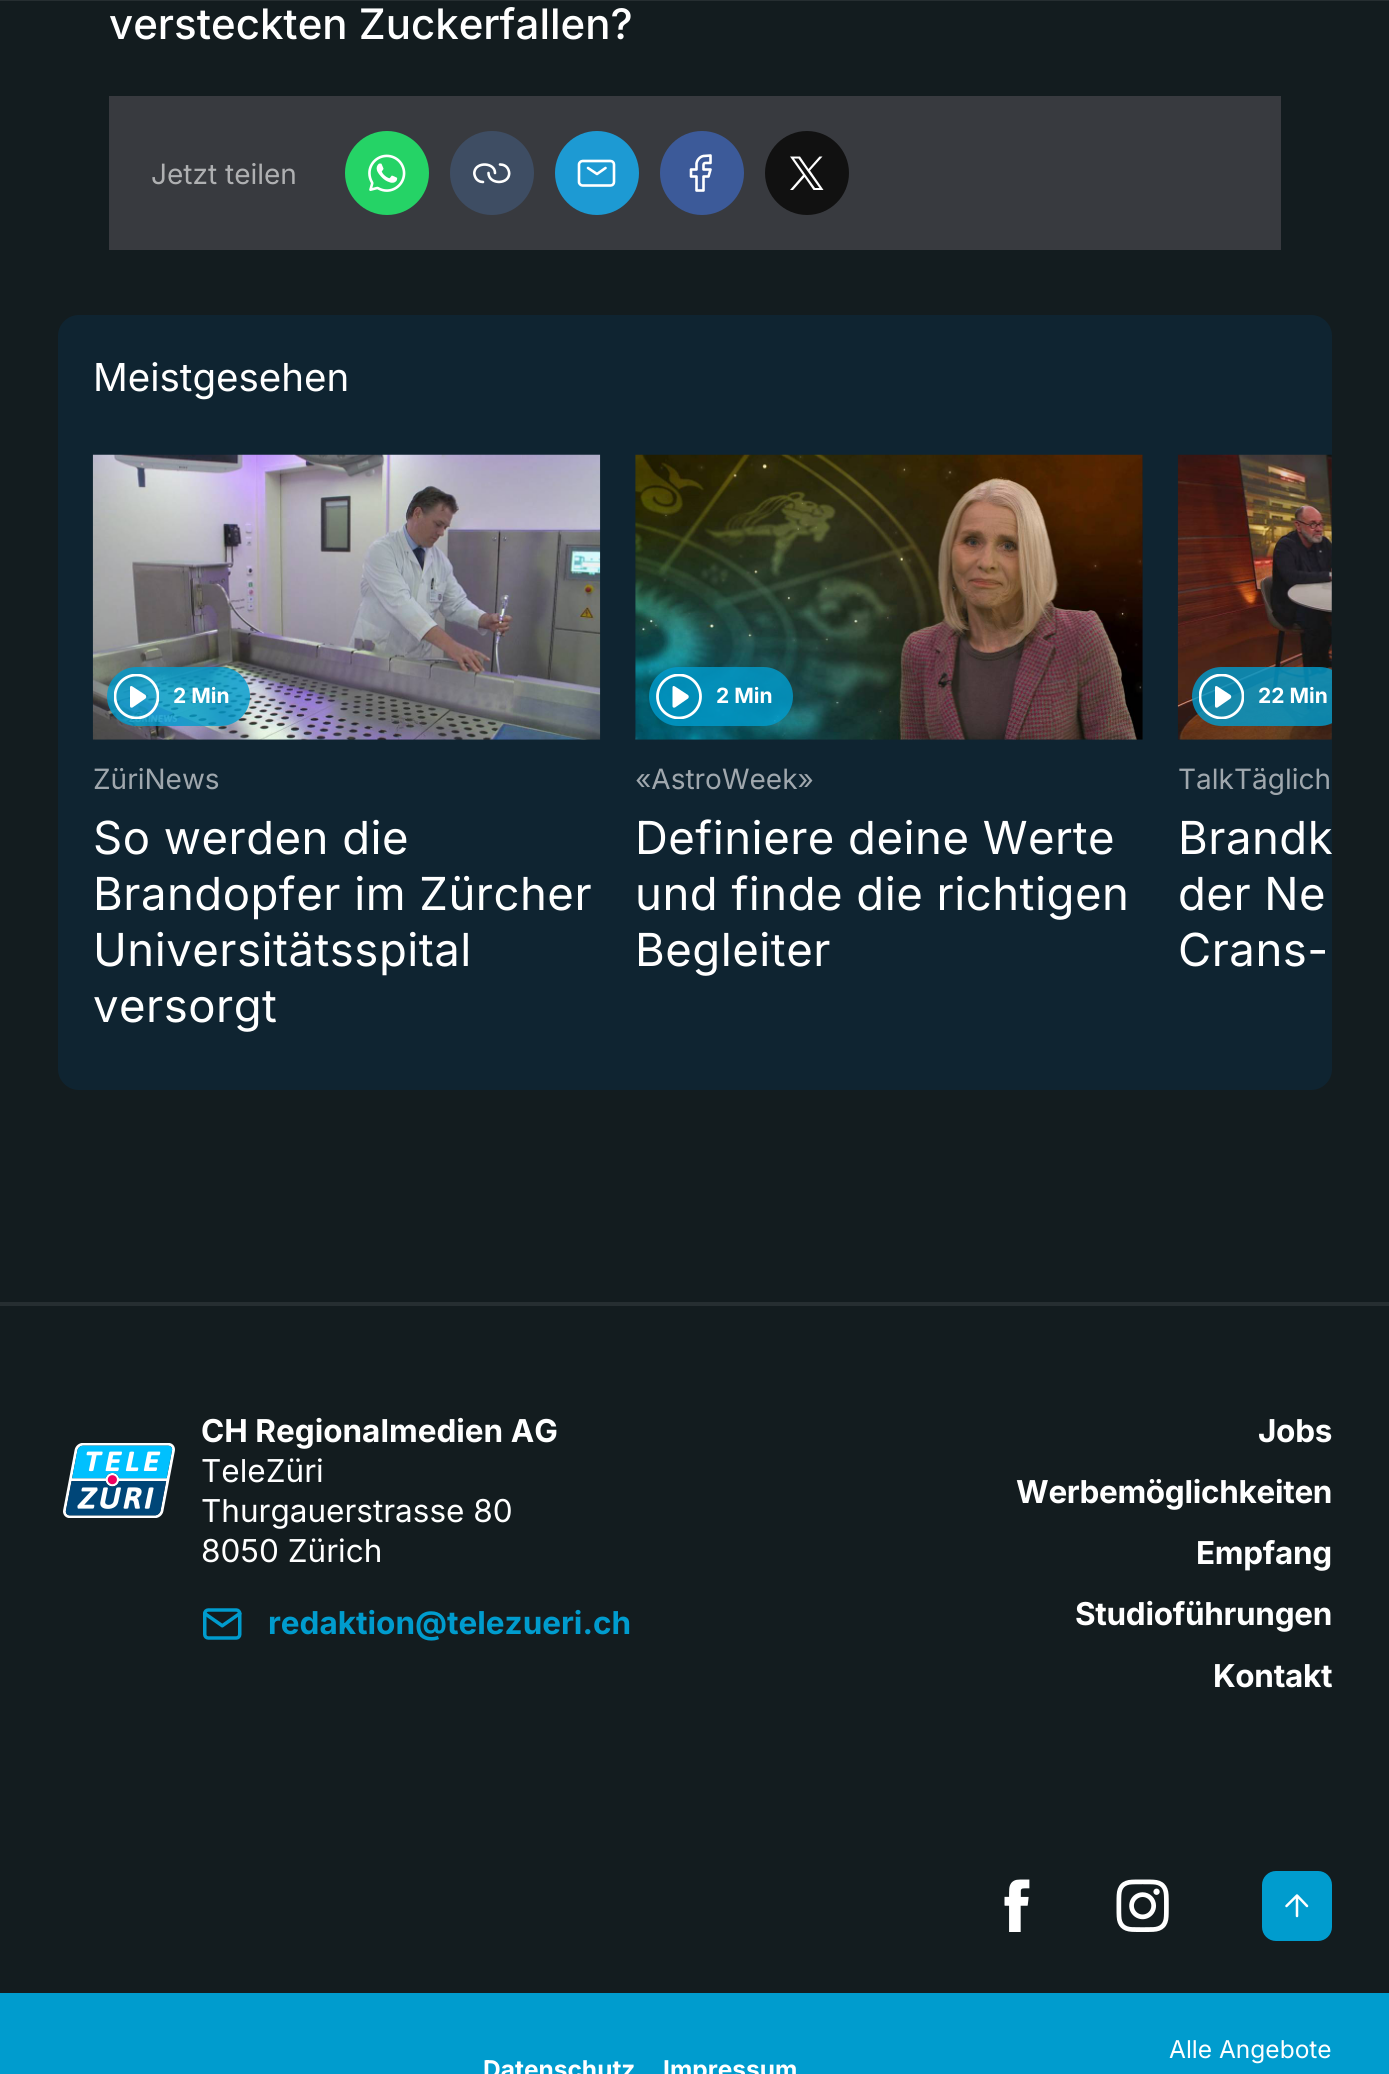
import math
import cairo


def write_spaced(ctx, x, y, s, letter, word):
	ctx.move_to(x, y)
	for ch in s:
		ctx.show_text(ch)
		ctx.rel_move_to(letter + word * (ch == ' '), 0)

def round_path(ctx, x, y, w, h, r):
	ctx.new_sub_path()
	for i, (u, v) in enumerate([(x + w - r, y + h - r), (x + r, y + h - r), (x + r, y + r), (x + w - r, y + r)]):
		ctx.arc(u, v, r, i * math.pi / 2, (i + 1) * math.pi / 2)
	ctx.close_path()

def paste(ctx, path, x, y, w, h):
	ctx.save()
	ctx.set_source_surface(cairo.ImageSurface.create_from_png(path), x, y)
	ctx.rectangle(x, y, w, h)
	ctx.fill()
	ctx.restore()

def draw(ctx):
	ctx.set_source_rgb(0.075, 0.11, 0.122)
	ctx.paint()
	ctx.set_source_rgb(0.149, 0.18, 0.192)
	ctx.rectangle(0, 0, 1389, 1)
	ctx.fill()
	ctx.select_font_face('Inter Medium')
	ctx.set_font_size(42)
	ctx.set_source_rgb(1, 1, 1)
	ctx.move_to(109, 39)
	ctx.show_text('versteckten Zuckerfallen?')
	ctx.set_source_rgb(0.22, 0.227, 0.247)
	ctx.rectangle(109, 96, 1172, 154)
	ctx.fill()
	ctx.select_font_face('Inter')
	ctx.set_font_size(28)
	ctx.set_source_rgb(0.686, 0.69, 0.698)
	ctx.move_to(151, 184)
	ctx.show_text('Jetzt teilen')
	paste(ctx, 'media/1.png', 345, 131, 84, 84)
	ctx.set_source_rgb(0.243, 0.302, 0.388)
	ctx.arc(492, 173, 42, 0, 2 * math.pi)
	ctx.fill()
	ctx.new_path()
	ctx.move_to(495, 173)
	ctx.curve_to(495, 162.5, 476.5, 161.5, 474.5, 171.5)
	ctx.curve_to(474, 173.5, 474.5, 175.5, 475.5, 177.5)
	ctx.curve_to(477, 180.5, 480, 182, 483, 182)
	ctx.move_to(488.5, 173)
	ctx.curve_to(488.5, 184, 507, 185, 509, 175)
	ctx.curve_to(509.5, 173, 509, 171, 508, 169)
	ctx.curve_to(506.5, 166, 503.5, 164.5, 500, 164.5)
	ctx.set_source_rgb(1, 1, 1)
	ctx.set_line_width(2.6)
	ctx.set_line_cap(cairo.LINE_CAP_ROUND)
	ctx.set_line_join(cairo.LINE_JOIN_ROUND)
	ctx.stroke()
	ctx.set_source_rgb(0.114, 0.604, 0.827)
	ctx.arc(597, 173, 42, 0, 2 * math.pi)
	ctx.fill()
	ctx.new_path()
	ctx.move_to(588, 168)
	ctx.line_to(597, 174)
	ctx.line_to(605.5, 168)
	ctx.set_source_rgb(1, 1, 1)
	ctx.stroke()
	ctx.new_path()
	ctx.move_to(579, 182)
	ctx.line_to(579, 164.5)
	ctx.curve_to(579, 162.5, 581, 161, 582.5, 161)
	ctx.line_to(610.5, 161)
	ctx.curve_to(612.5, 161, 614, 162.5, 614, 164.5)
	ctx.line_to(614, 182)
	ctx.curve_to(614, 184, 612.5, 185.5, 610.5, 185.5)
	ctx.line_to(582.5, 185.5)
	ctx.curve_to(581, 185.5, 579, 184, 579, 182)
	ctx.close_path()
	ctx.set_line_cap(cairo.LINE_CAP_BUTT)
	ctx.set_line_join(cairo.LINE_JOIN_MITER)
	ctx.stroke()
	ctx.set_source_rgb(0.235, 0.353, 0.6)
	ctx.arc(702, 173, 42, 0, 2 * math.pi)
	ctx.fill()
	ctx.new_path()
	ctx.move_to(710.5, 155.5)
	ctx.line_to(703.5, 156)
	ctx.curve_to(700, 156.5, 697, 160, 696.5, 163.5)
	ctx.line_to(696.5, 169.5)
	ctx.line_to(691, 169.5)
	ctx.line_to(691, 176.5)
	ctx.line_to(696.5, 176.5)
	ctx.line_to(696.5, 190.5)
	ctx.line_to(703.5, 190.5)
	ctx.line_to(703.5, 176.5)
	ctx.line_to(708.5, 176.5)
	ctx.line_to(710.5, 169.5)
	ctx.line_to(703.5, 169.5)
	ctx.curve_to(703.5, 162, 702.5, 163, 710.5, 163)
	ctx.close_path()
	ctx.set_source_rgb(1, 1, 1)
	ctx.set_line_cap(cairo.LINE_CAP_ROUND)
	ctx.set_line_join(cairo.LINE_JOIN_ROUND)
	ctx.stroke()
	ctx.set_source_rgb(0.067, 0.067, 0.067)
	ctx.arc(807, 173, 42, 0, 2 * math.pi)
	ctx.fill()
	ctx.set_source_rgb(1, 1, 1)
	ctx.new_path()
	ctx.move_to(810, 170.5)
	ctx.line_to(822.5, 156.5)
	ctx.line_to(819.5, 156.5)
	ctx.line_to(808.5, 169)
	ctx.line_to(800, 156.5)
	ctx.line_to(790, 156.5)
	ctx.line_to(803, 175)
	ctx.line_to(790, 190)
	ctx.line_to(793, 190)
	ctx.line_to(804.5, 177)
	ctx.line_to(813.5, 190)
	ctx.line_to(823.5, 190)
	ctx.close_path()
	ctx.move_to(806, 175.5)
	ctx.line_to(794, 158.5)
	ctx.line_to(798.5, 158.5)
	ctx.line_to(819.5, 188)
	ctx.line_to(815, 188)
	ctx.close_path()
	ctx.fill()
	ctx.set_source_rgb(0.059, 0.141, 0.192)
	round_path(ctx, 58, 315, 1274, 775, 21)
	ctx.fill()
	ctx.set_font_size(38.5)
	ctx.set_source_rgb(1, 1, 1)
	ctx.move_to(93, 391)
	ctx.show_text('Meistgesehen')
	paste(ctx, 'media/2.png', 92, 454, 509, 286)
	ctx.set_source_rgba(0, 0.612, 0.808, 0.8)
	round_path(ctx, 107, 667, 143, 59, 29.5)
	ctx.fill()
	ctx.set_source_rgb(1, 1, 1)
	ctx.new_path()
	ctx.move_to(132.5, 707.5)
	ctx.curve_to(131, 708, 130, 707.5, 130, 706)
	ctx.line_to(130, 687.5)
	ctx.curve_to(130, 686, 131, 685.5, 132.5, 686.5)
	ctx.line_to(145.5, 695)
	ctx.curve_to(146.5, 696, 146.5, 697.5, 145.5, 698.5)
	ctx.close_path()
	ctx.fill()
	ctx.save()
	ctx.rectangle(114, 674, 45, 45)
	ctx.clip()
	ctx.arc(136.5, 696.5, 21.5, 0, 2 * math.pi)
	ctx.set_line_width(2.8)
	ctx.set_line_cap(cairo.LINE_CAP_BUTT)
	ctx.set_line_join(cairo.LINE_JOIN_MITER)
	ctx.stroke()
	ctx.restore()
	ctx.select_font_face('Inter', cairo.FONT_SLANT_NORMAL, cairo.FONT_WEIGHT_BOLD)
	ctx.set_font_size(21)
	ctx.move_to(173, 703)
	ctx.show_text('2 Min')
	ctx.select_font_face('Inter')
	ctx.set_font_size(28)
	ctx.set_source_rgb(0.624, 0.655, 0.678)
	ctx.move_to(93, 789)
	ctx.show_text('ZüriNews')
	ctx.set_font_size(45.5)
	ctx.set_source_rgb(1, 1, 1)
	for x, y, s in [
		(93, 854, 'So werden die'),
		(93, 910, 'Brandopfer im Zürcher'),
		(93, 966, 'Universitätsspital'),
		(93, 1022, 'versorgt'),
	]:
		write_spaced(ctx, x, y, s, 0.5, 0)
	paste(ctx, 'media/3.png', 635, 454, 508, 286)
	ctx.set_source_rgba(0, 0.612, 0.808, 0.8)
	round_path(ctx, 649, 667, 144, 59, 29.5)
	ctx.fill()
	ctx.set_source_rgb(1, 1, 1)
	ctx.new_path()
	ctx.move_to(675, 707.5)
	ctx.curve_to(673.5, 708, 672.5, 707.5, 672.5, 706)
	ctx.line_to(672.5, 687.5)
	ctx.curve_to(672.5, 686, 673.5, 685.5, 675, 686.5)
	ctx.line_to(688, 695)
	ctx.curve_to(689, 696, 689, 697.5, 688, 698.5)
	ctx.close_path()
	ctx.fill()
	ctx.save()
	ctx.rectangle(656, 674, 46, 45)
	ctx.clip()
	ctx.arc(679, 696.5, 21.5, 0, 2 * math.pi)
	ctx.set_line_width(2.8)
	ctx.set_line_cap(cairo.LINE_CAP_BUTT)
	ctx.set_line_join(cairo.LINE_JOIN_MITER)
	ctx.stroke()
	ctx.restore()
	ctx.select_font_face('Inter', cairo.FONT_SLANT_NORMAL, cairo.FONT_WEIGHT_BOLD)
	ctx.set_font_size(21)
	ctx.move_to(716, 703)
	ctx.show_text('2 Min')
	ctx.select_font_face('Inter')
	ctx.set_font_size(28)
	ctx.set_source_rgb(0.624, 0.655, 0.678)
	ctx.move_to(635, 789)
	ctx.show_text('«AstroWeek»')
	ctx.set_font_size(45.5)
	ctx.set_source_rgb(1, 1, 1)
	for x, y, s in [
		(635, 854, 'Definiere deine Werte'),
		(635, 910, 'und finde die richtigen'),
		(635, 966, 'Begleiter'),
	]:
		write_spaced(ctx, x, y, s, 0.5, 0)
	paste(ctx, 'media/4.png', 1177, 454, 155, 286)
	ctx.save()
	ctx.rectangle(58, 455, 1274, 600)
	ctx.clip()
	ctx.set_source_rgba(0, 0.612, 0.808, 0.8)
	round_path(ctx, 1192, 667, 157, 59, 29.5)
	ctx.fill()
	ctx.restore()
	ctx.new_path()
	ctx.move_to(1217.5, 707.5)
	ctx.curve_to(1216, 708, 1215, 707.5, 1215, 706)
	ctx.line_to(1215, 687.5)
	ctx.curve_to(1215, 686, 1216, 685.5, 1217.5, 686.5)
	ctx.line_to(1230.5, 695)
	ctx.curve_to(1231.5, 696, 1231.5, 697.5, 1230.5, 698.5)
	ctx.close_path()
	ctx.fill()
	ctx.save()
	ctx.rectangle(1199, 674, 45, 45)
	ctx.clip()
	ctx.arc(1221.5, 696.5, 21.5, 0, 2 * math.pi)
	ctx.set_line_width(2.8)
	ctx.set_line_cap(cairo.LINE_CAP_BUTT)
	ctx.set_line_join(cairo.LINE_JOIN_MITER)
	ctx.stroke()
	ctx.restore()
	ctx.select_font_face('Inter', cairo.FONT_SLANT_NORMAL, cairo.FONT_WEIGHT_BOLD)
	ctx.set_font_size(21)
	ctx.move_to(1258, 703)
	ctx.show_text('22 Min')
	ctx.select_font_face('Inter')
	ctx.set_font_size(28)
	ctx.set_source_rgb(0.624, 0.655, 0.678)
	ctx.move_to(1178, 789)
	ctx.show_text('TalkTäglich')
	ctx.set_font_size(45.5)
	ctx.set_source_rgb(1, 1, 1)
	for x, y, s in [
		(1178, 854, 'Brandk'),
		(1178, 910, 'der Ne'),
		(1178, 966, 'Crans-'),
	]:
		write_spaced(ctx, x, y, s, 0.5, 0)
	ctx.set_source_rgb(0.149, 0.18, 0.192)
	ctx.rectangle(0, 1302, 1389, 4)
	ctx.fill()
	paste(ctx, 'media/5.png', 63, 1443, 112, 75)
	ctx.select_font_face('Inter', cairo.FONT_SLANT_NORMAL, cairo.FONT_WEIGHT_BOLD)
	ctx.set_font_size(31.5)
	ctx.set_source_rgb(1, 1, 1)
	ctx.move_to(201, 1442)
	ctx.show_text('CH Regionalmedien AG')
	ctx.select_font_face('Inter')
	for x, y, s in [
		(201, 1482, 'TeleZüri'),
		(201, 1522, 'Thurgauerstrasse 80'),
		(201, 1562, '8050 Zürich'),
	]:
		ctx.move_to(x, y)
		ctx.show_text(s)
	paste(ctx, 'media/6.png', 203, 1608, 39, 32)
	ctx.select_font_face('Inter', cairo.FONT_SLANT_NORMAL, cairo.FONT_WEIGHT_BOLD)
	ctx.set_source_rgb(0, 0.612, 0.808)
	ctx.move_to(268, 1634)
	ctx.show_text('redaktion@telezueri.ch')
	ctx.set_source_rgb(1, 1, 1)
	for x, y, s in [
		(1258, 1442, 'Jobs'),
		(1016, 1503, 'Werbemöglichkeiten'),
		(1196, 1564, 'Empfang'),
		(1075, 1625, 'Studioführungen'),
		(1213, 1687, 'Kontakt'),
	]:
		write_spaced(ctx, x, y, s, -0.3, 0)
	paste(ctx, 'media/7.png', 1004, 1879, 26, 53)
	paste(ctx, 'media/8.png', 1116, 1879, 53, 53)
	ctx.set_source_rgb(0, 0.612, 0.808)
	round_path(ctx, 1262, 1871, 70, 70, 14)
	ctx.fill()
	ctx.new_path()
	ctx.move_to(1297, 1916)
	ctx.line_to(1297, 1895.5)
	ctx.move_to(1286.5, 1906)
	ctx.line_to(1297, 1895.5)
	ctx.line_to(1307, 1906)
	ctx.set_source_rgb(1, 1, 1)
	ctx.set_line_width(2.5)
	ctx.stroke()
	ctx.set_source_rgb(0, 0.612, 0.808)
	ctx.rectangle(0, 1993, 1389, 81)
	ctx.fill()
	ctx.select_font_face('Inter')
	ctx.set_font_size(24.5)
	ctx.set_source_rgb(1, 1, 1)
	ctx.move_to(1169, 2058)
	ctx.show_text('Alle Angebote')
	ctx.select_font_face('Inter', cairo.FONT_SLANT_NORMAL, cairo.FONT_WEIGHT_BOLD)
	ctx.move_to(483, 2078)
	ctx.show_text('Datenschutz')
	ctx.move_to(663, 2078)
	ctx.show_text('Impressum')


surface = cairo.ImageSurface(cairo.FORMAT_RGB24, 1389, 2074)
ctx = cairo.Context(surface)
options = cairo.FontOptions()
options.set_hint_metrics(cairo.HINT_METRICS_OFF)
options.set_hint_style(cairo.HINT_STYLE_NONE)
ctx.set_font_options(options)
ctx.set_miter_limit(4)
draw(ctx)
surface.write_to_png('image.png')
